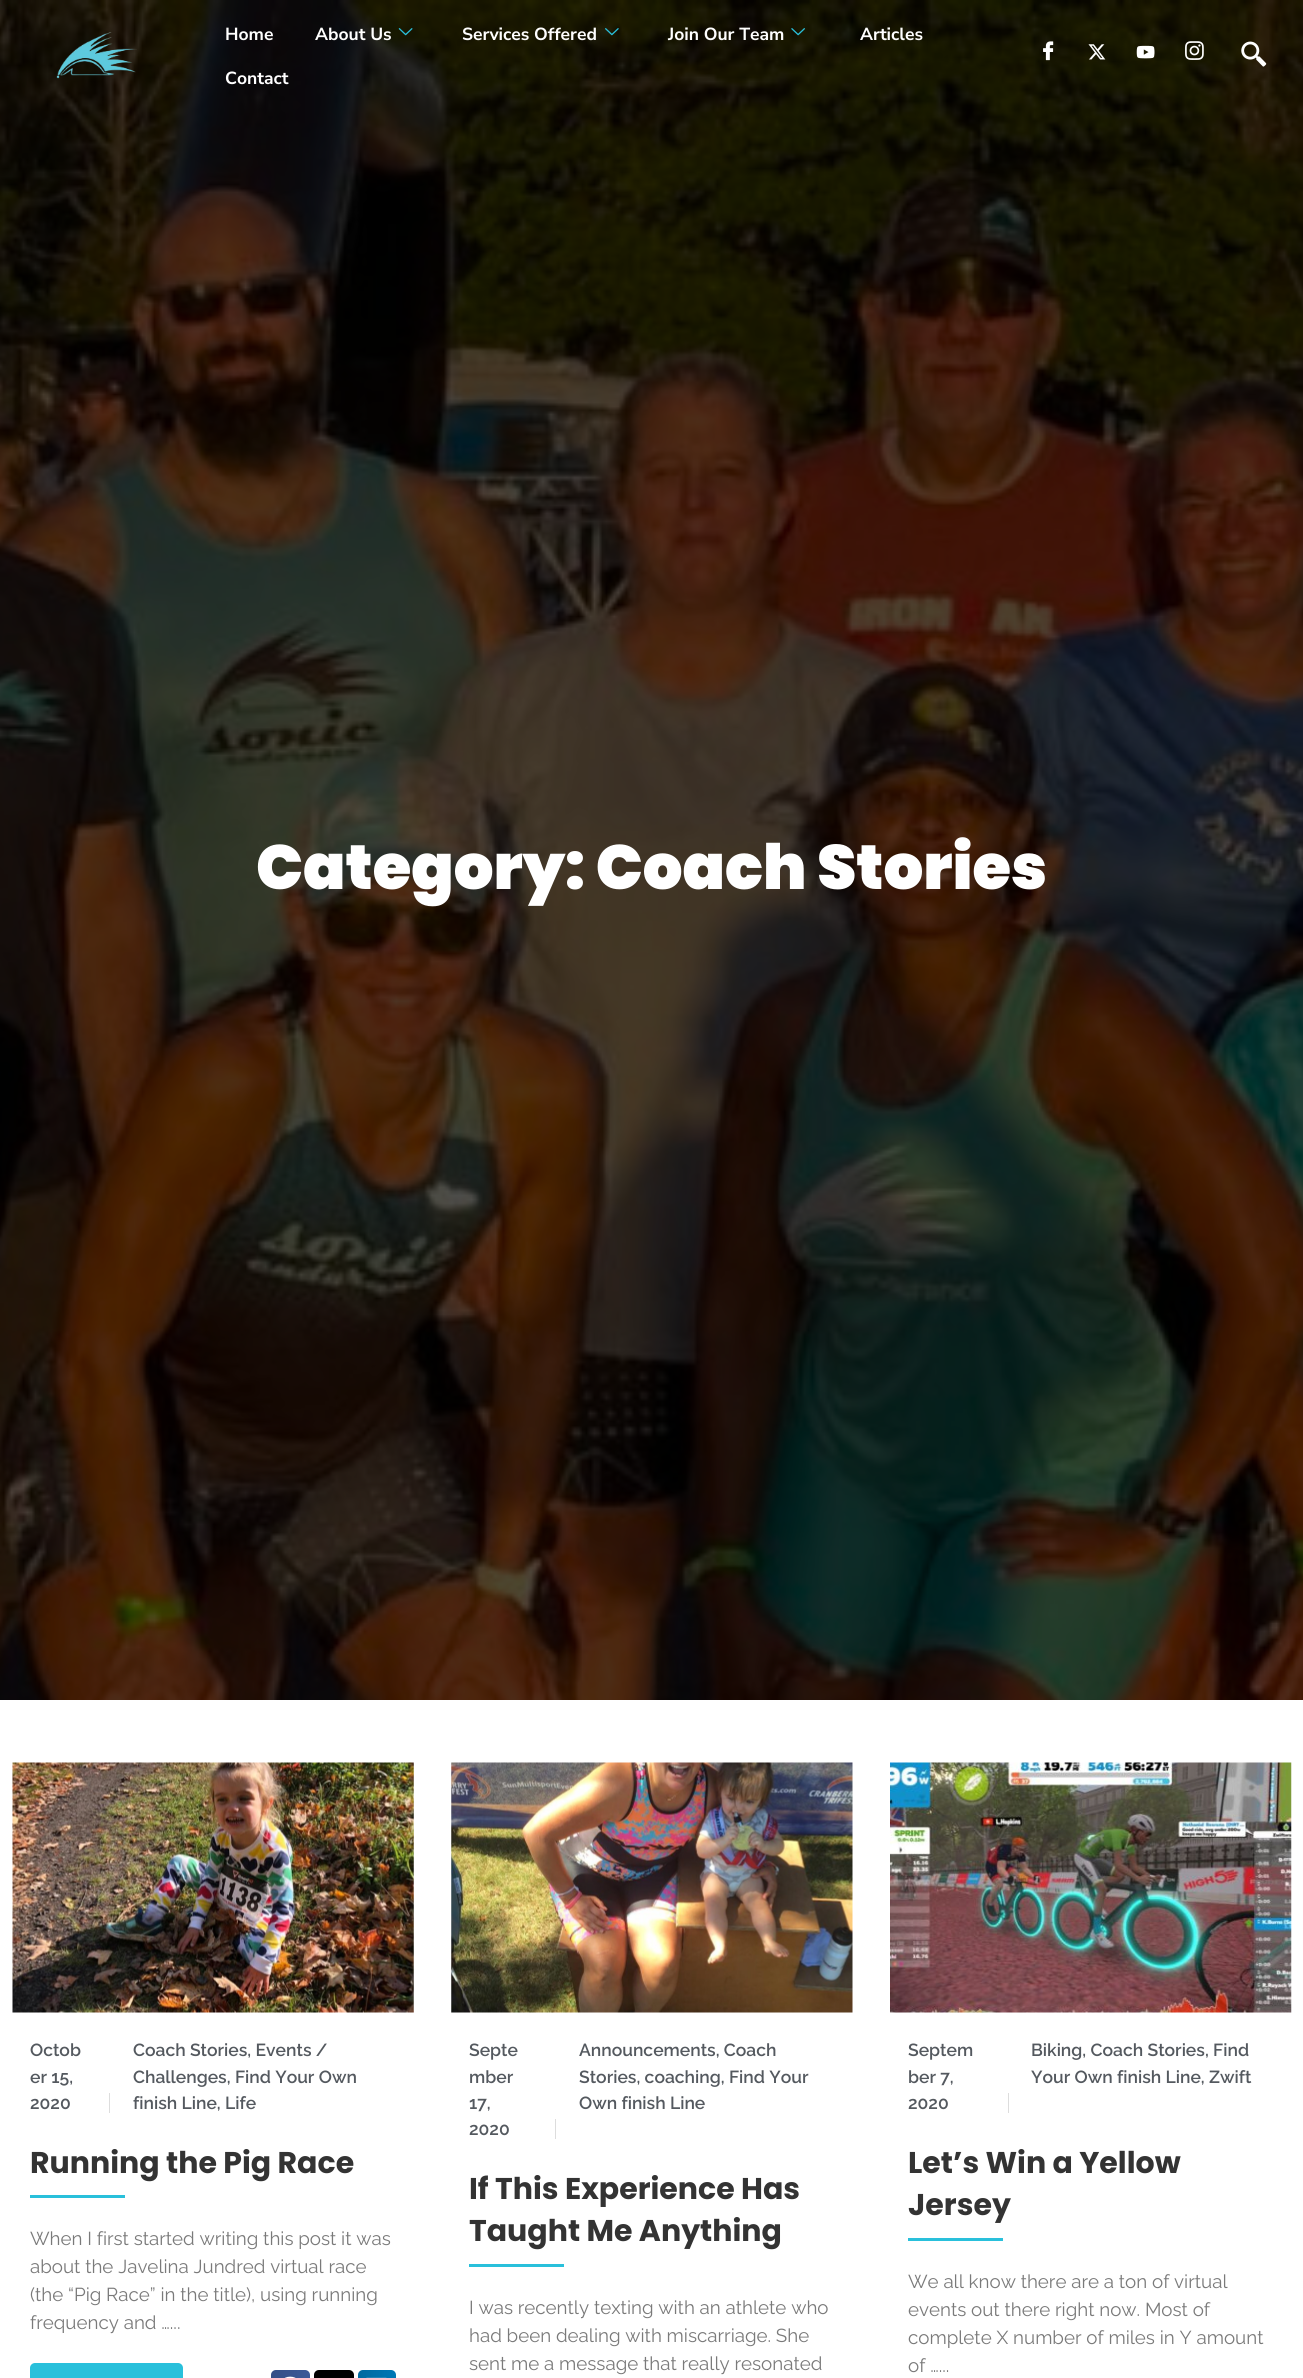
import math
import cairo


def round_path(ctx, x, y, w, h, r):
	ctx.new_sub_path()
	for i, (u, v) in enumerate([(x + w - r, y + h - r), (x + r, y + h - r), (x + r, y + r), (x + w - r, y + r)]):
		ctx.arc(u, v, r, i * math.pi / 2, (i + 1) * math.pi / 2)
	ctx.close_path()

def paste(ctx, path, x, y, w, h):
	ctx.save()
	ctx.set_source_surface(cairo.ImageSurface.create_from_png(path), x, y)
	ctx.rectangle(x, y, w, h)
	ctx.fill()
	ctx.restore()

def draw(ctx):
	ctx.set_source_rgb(1, 1, 1)
	ctx.paint()
	paste(ctx, 'media/10.png', 0, 0, 1303, 1700)
	paste(ctx, 'media/1.png', 56, 32, 81, 47)
	ctx.select_font_face('Nunito Sans', cairo.FONT_SLANT_NORMAL, cairo.FONT_WEIGHT_BOLD)
	ctx.set_font_size(17.5)
	ctx.set_source_rgb(1, 1, 1)
	ctx.move_to(225, 40)
	ctx.show_text('Home')
	ctx.move_to(315, 40)
	ctx.show_text('About Us')
	paste(ctx, 'media/2.png', 398, 28, 15, 8)
	ctx.move_to(462, 40)
	ctx.show_text('Services Offered')
	paste(ctx, 'media/3.png', 605, 28, 14, 8)
	ctx.move_to(668, 40)
	ctx.show_text('Join Our Team')
	paste(ctx, 'media/4.png', 791, 28, 14, 8)
	ctx.move_to(860, 40)
	ctx.show_text('Articles')
	ctx.move_to(225, 84)
	ctx.show_text('Contact')
	paste(ctx, 'media/5.png', 1043, 41, 11, 20)
	paste(ctx, 'media/6.png', 1088, 44, 18, 16)
	paste(ctx, 'media/7.png', 1136, 45, 19, 14)
	paste(ctx, 'media/8.png', 1185, 41, 19, 19)
	paste(ctx, 'media/9.png', 1241, 41, 26, 26)
	ctx.select_font_face('Poppins Black')
	ctx.set_font_size(62.5)
	ctx.move_to(256, 889)
	ctx.show_text('Category: Coach Stories')
	paste(ctx, 'media/11.png', 12, 1762, 402, 251)
	ctx.select_font_face('Raleway SemiBold')
	ctx.set_font_size(17.5)
	ctx.set_source_rgb(0.329, 0.349, 0.373)
	for x, y, s in [
		(30, 2056, 'Octob'),
		(30, 2083, 'er 15,'),
		(30, 2109, '2020'),
	]:
		ctx.move_to(x, y)
		ctx.show_text(s)
	ctx.set_source_rgb(0.867, 0.867, 0.867)
	ctx.rectangle(109, 2093, 1, 20)
	ctx.fill()
	ctx.set_source_rgb(0.329, 0.349, 0.373)
	for x, y, s in [
		(133, 2056, 'Coach Stories, Events /'),
		(133, 2083, 'Challenges, Find Your Own'),
		(133, 2109, 'finish Line, Life'),
	]:
		ctx.move_to(x, y)
		ctx.show_text(s)
	ctx.select_font_face('Poppins', cairo.FONT_SLANT_NORMAL, cairo.FONT_WEIGHT_BOLD)
	ctx.set_font_size(30)
	ctx.set_source_rgb(0.2, 0.2, 0.2)
	ctx.move_to(30, 2173)
	ctx.show_text('Running the Pig Race')
	ctx.set_source_rgb(0.161, 0.753, 0.859)
	ctx.rectangle(30, 2195, 95, 3)
	ctx.fill()
	ctx.select_font_face('Raleway')
	ctx.set_font_size(18.75)
	ctx.set_source_rgb(0.478, 0.478, 0.478)
	for x, y, s in [
		(30, 2245, 'When I first started writing this post it was'),
		(30, 2273, 'about the Javelina Jundred virtual race'),
		(30, 2301, '(the “Pig Race” in the title), using running'),
		(30, 2329, 'frequency and …...'),
	]:
		ctx.move_to(x, y)
		ctx.show_text(s)
	ctx.set_source_rgb(0.161, 0.753, 0.859)
	round_path(ctx, 30, 2363, 153, 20, 5)
	ctx.fill()
	ctx.set_source_rgb(0.231, 0.349, 0.596)
	round_path(ctx, 271, 2370, 39, 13, 5)
	ctx.fill()
	gradient = cairo.LinearGradient(271, 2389, 310, 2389)
	gradient.add_color_stop_rgba(0, 0, 0, 0, 0.12)
	gradient.add_color_stop_rgba(1, 0, 0, 0, 0)
	ctx.set_source(gradient)
	round_path(ctx, 271, 2370, 39, 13, 5)
	ctx.fill()
	paste(ctx, 'media/12.png', 284, 2376, 12, 2)
	ctx.set_source_rgb(0, 0, 0)
	round_path(ctx, 314, 2370, 40, 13, 5)
	ctx.fill()
	gradient = cairo.LinearGradient(314, 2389, 354, 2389)
	gradient.add_color_stop_rgba(0, 0, 0, 0, 0.12)
	gradient.add_color_stop_rgba(1, 0, 0, 0, 0)
	ctx.set_source(gradient)
	round_path(ctx, 314, 2370, 40, 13, 5)
	ctx.fill()
	ctx.set_source_rgb(0, 0.467, 0.71)
	round_path(ctx, 358, 2370, 38, 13, 5)
	ctx.fill()
	gradient = cairo.LinearGradient(358, 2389, 396, 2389)
	gradient.add_color_stop_rgba(0, 0, 0, 0, 0.12)
	gradient.add_color_stop_rgba(1, 0, 0, 0, 0)
	ctx.set_source(gradient)
	round_path(ctx, 358, 2370, 38, 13, 5)
	ctx.fill()
	paste(ctx, 'media/13.png', 366, 2377, 21, 1)
	paste(ctx, 'media/14.png', 451, 1762, 402, 251)
	ctx.select_font_face('Raleway SemiBold')
	ctx.set_font_size(17.5)
	ctx.set_source_rgb(0.329, 0.349, 0.373)
	for x, y, s in [
		(469, 2056, 'Septe'),
		(469, 2083, 'mber'),
		(469, 2109, '17,'),
		(469, 2135, '2020'),
	]:
		ctx.move_to(x, y)
		ctx.show_text(s)
	ctx.set_source_rgb(0.867, 0.867, 0.867)
	ctx.rectangle(555, 2119, 1, 20)
	ctx.fill()
	ctx.set_source_rgb(0.329, 0.349, 0.373)
	for x, y, s in [
		(579, 2056, 'Announcements, Coach'),
		(579, 2083, 'Stories, coaching, Find Your'),
		(579, 2109, 'Own finish Line'),
	]:
		ctx.move_to(x, y)
		ctx.show_text(s)
	ctx.select_font_face('Poppins', cairo.FONT_SLANT_NORMAL, cairo.FONT_WEIGHT_BOLD)
	ctx.set_font_size(30)
	ctx.set_source_rgb(0.2, 0.2, 0.2)
	ctx.move_to(469, 2199)
	ctx.show_text('If This Experience Has')
	ctx.move_to(469, 2241)
	ctx.show_text('Taught Me Anything')
	ctx.set_source_rgb(0.161, 0.753, 0.859)
	ctx.rectangle(469, 2264, 95, 3)
	ctx.fill()
	ctx.select_font_face('Raleway')
	ctx.set_font_size(18.75)
	ctx.set_source_rgb(0.478, 0.478, 0.478)
	for x, y, s in [
		(469, 2314, 'I was recently texting with an athlete who'),
		(469, 2342, 'had been dealing with miscarriage. She'),
		(469, 2370, 'sent me a message that really resonated'),
	]:
		ctx.move_to(x, y)
		ctx.show_text(s)
	paste(ctx, 'media/15.png', 890, 1762, 402, 251)
	ctx.select_font_face('Raleway SemiBold')
	ctx.set_font_size(17.5)
	ctx.set_source_rgb(0.329, 0.349, 0.373)
	for x, y, s in [
		(908, 2056, 'Septem'),
		(908, 2083, 'ber 7,'),
		(908, 2109, '2020'),
	]:
		ctx.move_to(x, y)
		ctx.show_text(s)
	ctx.set_source_rgb(0.867, 0.867, 0.867)
	ctx.rectangle(1008, 2093, 1, 20)
	ctx.fill()
	ctx.set_source_rgb(0.329, 0.349, 0.373)
	ctx.move_to(1031, 2056)
	ctx.show_text('Biking, Coach Stories, Find')
	ctx.move_to(1031, 2083)
	ctx.show_text('Your Own finish Line, Zwift')
	ctx.select_font_face('Poppins', cairo.FONT_SLANT_NORMAL, cairo.FONT_WEIGHT_BOLD)
	ctx.set_font_size(30)
	ctx.set_source_rgb(0.2, 0.2, 0.2)
	ctx.move_to(908, 2173)
	ctx.show_text('Let’s Win a Yellow')
	ctx.move_to(908, 2215)
	ctx.show_text('Jersey')
	ctx.set_source_rgb(0.161, 0.753, 0.859)
	ctx.rectangle(908, 2238, 95, 3)
	ctx.fill()
	ctx.select_font_face('Raleway')
	ctx.set_font_size(18.75)
	ctx.set_source_rgb(0.478, 0.478, 0.478)
	for x, y, s in [
		(908, 2288, 'We all know there are a ton of virtual'),
		(908, 2316, 'events out there right now. Most of'),
		(908, 2344, 'complete X number of miles in Y amount'),
		(908, 2372, 'of …...'),
	]:
		ctx.move_to(x, y)
		ctx.show_text(s)


surface = cairo.ImageSurface(cairo.FORMAT_RGB24, 1303, 2378)
ctx = cairo.Context(surface)
options = cairo.FontOptions()
options.set_hint_metrics(cairo.HINT_METRICS_OFF)
options.set_hint_style(cairo.HINT_STYLE_NONE)
ctx.set_font_options(options)
ctx.set_miter_limit(4)
draw(ctx)
surface.write_to_png('image.png')
